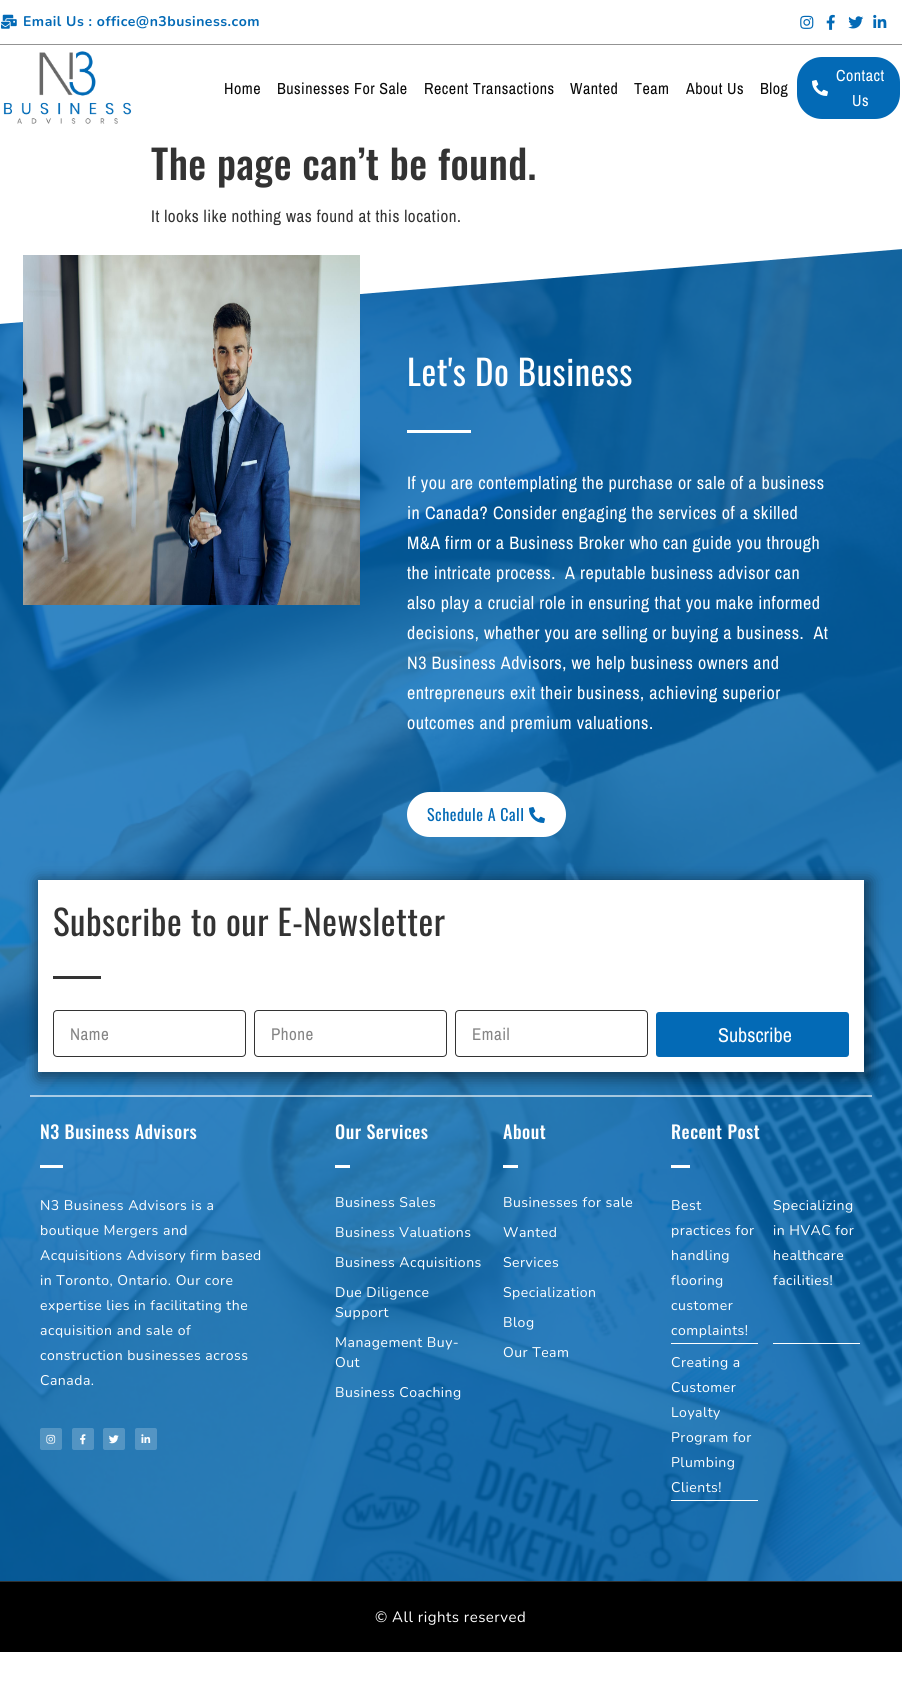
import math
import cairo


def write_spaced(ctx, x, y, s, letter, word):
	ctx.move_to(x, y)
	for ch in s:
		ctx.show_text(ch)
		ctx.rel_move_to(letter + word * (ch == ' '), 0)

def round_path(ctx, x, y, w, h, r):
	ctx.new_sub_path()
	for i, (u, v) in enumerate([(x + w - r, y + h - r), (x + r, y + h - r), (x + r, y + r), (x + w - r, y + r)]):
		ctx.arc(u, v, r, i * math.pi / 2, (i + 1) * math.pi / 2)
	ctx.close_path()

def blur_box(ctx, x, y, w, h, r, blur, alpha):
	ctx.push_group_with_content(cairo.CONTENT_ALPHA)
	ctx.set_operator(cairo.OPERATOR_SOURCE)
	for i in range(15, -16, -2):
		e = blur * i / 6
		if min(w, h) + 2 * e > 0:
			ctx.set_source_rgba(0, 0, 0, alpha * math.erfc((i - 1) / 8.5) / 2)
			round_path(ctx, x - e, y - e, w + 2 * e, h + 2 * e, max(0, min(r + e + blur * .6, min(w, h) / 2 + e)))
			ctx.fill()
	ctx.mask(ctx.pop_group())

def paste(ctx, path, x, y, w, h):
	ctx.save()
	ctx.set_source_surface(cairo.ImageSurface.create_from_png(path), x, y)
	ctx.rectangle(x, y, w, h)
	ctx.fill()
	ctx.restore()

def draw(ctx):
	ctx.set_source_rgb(1, 1, 1)
	ctx.paint()
	ctx.set_source_rgb(0.576, 0.576, 0.576)
	ctx.rectangle(0, 44, 902, 1)
	ctx.fill()
	paste(ctx, 'media/1.png', 1, 14, 16, 15)
	ctx.select_font_face('Nunito', cairo.FONT_SLANT_NORMAL, cairo.FONT_WEIGHT_BOLD)
	ctx.set_font_size(14)
	ctx.set_source_rgb(0.012, 0.416, 0.714)
	write_spaced(ctx, 23, 26, 'Email Us : office@n3business.com', 0.5, 0)
	paste(ctx, 'media/2.png', 800, 15, 14, 14)
	paste(ctx, 'media/3.png', 826, 14, 9, 16)
	paste(ctx, 'media/4.png', 848, 16, 16, 13)
	paste(ctx, 'media/5.png', 873, 14, 14, 14)
	paste(ctx, 'media/6.png', 3, 51, 129, 73)
	ctx.select_font_face('Archivo Narrow')
	ctx.set_font_size(16)
	ctx.set_source_rgb(0.039, 0.039, 0.039)
	for x, y, s in [
		(224, 94, 'Home'),
		(277, 94, 'Businesses For Sale'),
		(424, 94, 'Recent Transactions'),
		(570, 94, 'Wanted'),
		(634, 94, 'Team'),
		(686, 94, 'About Us'),
		(760, 94, 'Blog'),
	]:
		write_spaced(ctx, x, y, s, 0.5, 0)
	ctx.set_source_rgb(0.012, 0.416, 0.714)
	round_path(ctx, 797, 57, 103, 62, 25)
	ctx.fill()
	paste(ctx, 'media/7.png', 812, 80, 16, 16)
	ctx.set_source_rgb(1, 1, 1)
	write_spaced(ctx, 836, 81, 'Contact', 0.5, 0)
	write_spaced(ctx, 852, 106, 'Us', 0.5, 0)
	ctx.select_font_face('Oswald Medium')
	ctx.set_font_size(40)
	ctx.set_source_rgb(0.2, 0.2, 0.2)
	write_spaced(ctx, 151, 180, 'The page can’t be found.', 0.5, 0)
	ctx.select_font_face('Archivo Narrow')
	ctx.set_font_size(17)
	write_spaced(ctx, 151, 222, 'It looks like nothing was found at this location.', 0.5, 0)
	paste(ctx, 'media/8.png', 0, 249, 902, 1332)
	ctx.set_source_rgb(1, 1, 1)
	ctx.new_path()
	ctx.move_to(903, 249)
	ctx.line_to(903, 244)
	ctx.line_to(-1, 244)
	ctx.line_to(-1, 324)
	ctx.close_path()
	ctx.fill()
	paste(ctx, 'media/9.png', 23, 255, 337, 350)
	ctx.select_font_face('Oswald')
	ctx.set_font_size(35)
	write_spaced(ctx, 407, 386, 'Let\'s Do Business', 0.5, 0)
	ctx.rectangle(407, 430, 64, 3)
	ctx.fill()
	ctx.select_font_face('Archivo Narrow')
	ctx.set_font_size(18)
	for x, y, s in [
		(407, 489, 'If you are contemplating the purchase or sale of a business'),
		(407, 519, 'in Canada? Consider engaging the services of a skilled'),
		(407, 549, 'M&A firm or a Business Broker who can guide you through'),
		(407, 579, 'the intricate process.  A reputable business advisor can'),
		(407, 609, 'also play a crucial role in ensuring that you make informed'),
		(407, 639, 'decisions, whether you are selling or buying a business.  At'),
		(407, 669, 'N3 Business Advisors, we help business owners and'),
		(407, 699, 'entrepreneurs exit their business, achieving superior'),
		(407, 729, 'outcomes and premium valuations.'),
	]:
		write_spaced(ctx, x, y, s, 0.5, 0)
	round_path(ctx, 407, 792, 159, 45, 22.5)
	ctx.fill()
	ctx.select_font_face('Oswald')
	ctx.set_font_size(16)
	ctx.set_source_rgb(0.012, 0.416, 0.714)
	write_spaced(ctx, 427, 821, 'Schedule A Call', 0.5, 0)
	paste(ctx, 'media/10.png', 529, 807, 16, 16)
	ctx.set_source_rgb(0, 0, 0)
	blur_box(ctx, 38, 880, 832, 198, 0, 7.5, 0.5)
	ctx.set_source_rgb(1, 1, 1)
	ctx.rectangle(38, 880, 826, 192)
	ctx.fill()
	ctx.set_font_size(35)
	ctx.set_source_rgb(0.2, 0.2, 0.2)
	write_spaced(ctx, 53, 936, 'Subscribe to our E-Newsletter', 0.5, 0)
	ctx.rectangle(53, 976, 48, 3)
	ctx.fill()
	round_path(ctx, 53.5, 1010.5, 192, 46, 3.5)
	ctx.set_line_width(1)
	ctx.stroke()
	ctx.select_font_face('Archivo Narrow')
	ctx.set_font_size(17)
	ctx.set_source_rgb(0.522, 0.522, 0.522)
	write_spaced(ctx, 70, 1040, 'Name', 0.5, 0)
	round_path(ctx, 254.5, 1010.5, 192, 46, 3.5)
	ctx.set_source_rgb(0.2, 0.2, 0.2)
	ctx.stroke()
	ctx.set_source_rgb(0.522, 0.522, 0.522)
	write_spaced(ctx, 271, 1040, 'Phone', 0.5, 0)
	round_path(ctx, 455.5, 1010.5, 192, 46, 3.5)
	ctx.set_source_rgb(0.2, 0.2, 0.2)
	ctx.stroke()
	ctx.set_source_rgb(0.522, 0.522, 0.522)
	write_spaced(ctx, 472, 1040, 'Email', 0.5, 0)
	ctx.set_source_rgb(0.012, 0.416, 0.714)
	round_path(ctx, 656, 1012, 193, 45, 3)
	ctx.fill()
	ctx.set_font_size(20)
	ctx.set_source_rgb(1, 1, 1)
	ctx.move_to(718, 1042)
	ctx.show_text('Subscribe')
	ctx.set_source_rgba(1, 1, 1, 0.59)
	ctx.rectangle(30, 1095, 842, 2)
	ctx.fill()
	ctx.select_font_face('Oswald Medium')
	ctx.set_font_size(18)
	ctx.set_source_rgb(1, 1, 1)
	write_spaced(ctx, 40, 1139, 'N3 Business Advisors', 0.5, 0)
	ctx.rectangle(40, 1165, 23, 3)
	ctx.fill()
	ctx.select_font_face('Nunito')
	ctx.set_font_size(14)
	for x, y, s in [
		(40, 1210, 'N3 Business Advisors is a'),
		(40, 1235, 'boutique Mergers and'),
		(40, 1260, 'Acquisitions Advisory firm based'),
		(40, 1285, 'in Toronto, Ontario. Our core'),
		(40, 1310, 'expertise lies in facilitating the'),
		(40, 1335, 'acquisition and sale of'),
		(40, 1360, 'construction businesses across'),
		(40, 1385, 'Canada.'),
	]:
		write_spaced(ctx, x, y, s, 0.5, 0)
	ctx.set_source_rgb(0.325, 0.58, 0.761)
	round_path(ctx, 40, 1428, 22, 22, 2)
	ctx.fill()
	paste(ctx, 'media/11.png', 46, 1434, 10, 10)
	ctx.set_source_rgb(0.325, 0.58, 0.765)
	round_path(ctx, 72, 1428, 22, 22, 2)
	ctx.fill()
	paste(ctx, 'media/12.png', 80, 1434, 6, 11)
	ctx.set_source_rgb(0.329, 0.584, 0.765)
	round_path(ctx, 103, 1428, 22, 22, 2)
	ctx.fill()
	paste(ctx, 'media/13.png', 109, 1435, 10, 9)
	ctx.set_source_rgb(0.329, 0.584, 0.769)
	round_path(ctx, 135, 1428, 22, 22, 2)
	ctx.fill()
	paste(ctx, 'media/14.png', 141, 1434, 10, 9)
	ctx.select_font_face('Oswald Medium')
	ctx.set_font_size(18)
	ctx.set_source_rgb(1, 1, 1)
	write_spaced(ctx, 335, 1139, 'Our Services', 0.5, 0)
	ctx.rectangle(335, 1165, 15, 3)
	ctx.fill()
	ctx.select_font_face('Nunito')
	ctx.set_font_size(14)
	for x, y, s in [
		(335, 1207, 'Business Sales'),
		(335, 1237, 'Business Valuations'),
		(335, 1267, 'Business Acquisitions'),
		(335, 1297, 'Due Diligence'),
		(335, 1317, 'Support'),
		(335, 1347, 'Management Buy-'),
		(335, 1367, 'Out'),
		(335, 1397, 'Business Coaching'),
	]:
		write_spaced(ctx, x, y, s, 0.5, 0)
	ctx.select_font_face('Oswald Medium')
	ctx.set_font_size(18)
	write_spaced(ctx, 503, 1139, 'About', 0.5, 0)
	ctx.rectangle(503, 1165, 15, 3)
	ctx.fill()
	ctx.select_font_face('Nunito')
	ctx.set_font_size(14)
	for x, y, s in [
		(503, 1207, 'Businesses for sale'),
		(503, 1237, 'Wanted'),
		(503, 1267, 'Services'),
		(503, 1297, 'Specialization'),
		(503, 1327, 'Blog'),
		(503, 1357, 'Our Team'),
	]:
		write_spaced(ctx, x, y, s, 0.5, 0)
	ctx.select_font_face('Oswald Medium')
	ctx.set_font_size(18)
	write_spaced(ctx, 671, 1139, 'Recent Post', 0.5, 0)
	ctx.rectangle(671, 1165, 19, 3)
	ctx.fill()
	ctx.rectangle(671, 1343, 87, 1)
	ctx.fill()
	ctx.select_font_face('Nunito')
	ctx.set_font_size(14)
	for x, y, s in [
		(671, 1210, 'Best'),
		(671, 1235, 'practices for'),
		(671, 1260, 'handling'),
		(671, 1285, 'flooring'),
		(671, 1310, 'customer'),
		(671, 1335, 'complaints!'),
	]:
		write_spaced(ctx, x, y, s, 0.5, 0)
	ctx.rectangle(773, 1343, 87, 1)
	ctx.fill()
	for x, y, s in [
		(773, 1210, 'Specializing'),
		(773, 1235, 'in HVAC for'),
		(773, 1260, 'healthcare'),
		(773, 1285, 'facilities!'),
	]:
		write_spaced(ctx, x, y, s, 0.5, 0)
	ctx.rectangle(671, 1500, 87, 1)
	ctx.fill()
	for x, y, s in [
		(671, 1367, 'Creating a'),
		(671, 1392, 'Customer'),
		(671, 1417, 'Loyalty'),
		(671, 1442, 'Program for'),
		(671, 1467, 'Plumbing'),
		(671, 1492, 'Clients!'),
	]:
		write_spaced(ctx, x, y, s, 0.5, 0)
	ctx.set_source_rgb(0, 0, 0)
	ctx.rectangle(0, 1582, 902, 70)
	ctx.fill()
	ctx.set_source_rgb(0.188, 0.188, 0.188)
	ctx.rectangle(0, 1581, 902, 1)
	ctx.fill()
	ctx.set_font_size(15)
	ctx.set_source_rgb(1, 1, 1)
	write_spaced(ctx, 375, 1622, '© All rights reserved', 0.5, 0)


surface = cairo.ImageSurface(cairo.FORMAT_RGB24, 902, 1694)
ctx = cairo.Context(surface)
options = cairo.FontOptions()
options.set_hint_metrics(cairo.HINT_METRICS_OFF)
options.set_hint_style(cairo.HINT_STYLE_NONE)
ctx.set_font_options(options)
ctx.set_miter_limit(4)
draw(ctx)
surface.write_to_png('image.png')
